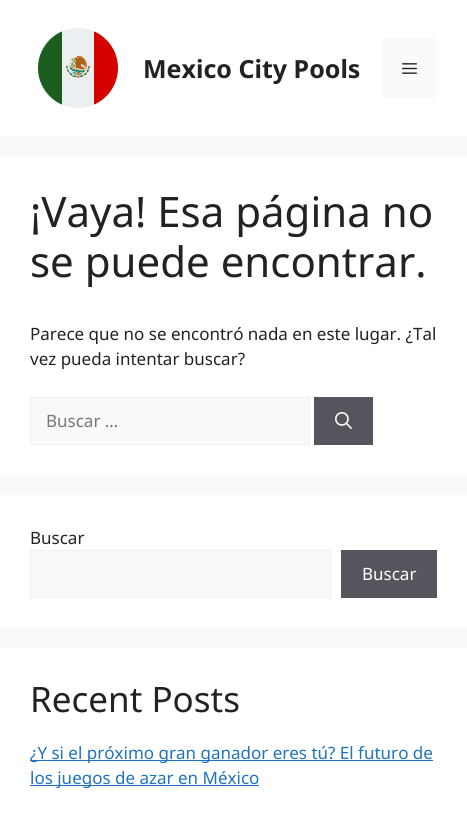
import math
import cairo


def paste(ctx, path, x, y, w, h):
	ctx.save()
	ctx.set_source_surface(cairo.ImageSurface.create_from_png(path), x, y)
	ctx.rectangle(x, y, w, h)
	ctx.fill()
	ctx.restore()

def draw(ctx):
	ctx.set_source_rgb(0.969, 0.973, 0.976)
	ctx.paint()
	ctx.set_source_rgb(1, 1, 1)
	ctx.rectangle(0, 0, 467, 136)
	ctx.fill()
	paste(ctx, 'media/1.png', 38, 28, 80, 80)
	ctx.select_font_face('Noto Sans', cairo.FONT_SLANT_NORMAL, cairo.FONT_WEIGHT_BOLD)
	ctx.set_font_size(25)
	ctx.set_source_rgb(0.133, 0.133, 0.133)
	ctx.move_to(143, 78)
	ctx.show_text('Mexico City Pools')
	ctx.set_source_rgb(0.98, 0.98, 0.98)
	ctx.rectangle(382, 38, 55, 60)
	ctx.fill()
	paste(ctx, 'media/2.png', 402, 63, 15, 11)
	ctx.set_source_rgb(1, 1, 1)
	ctx.rectangle(0, 156, 467, 319)
	ctx.fill()
	ctx.select_font_face('Noto Sans')
	ctx.set_font_size(42)
	ctx.set_source_rgb(0.133, 0.133, 0.133)
	ctx.move_to(30, 227)
	ctx.show_text('¡Vaya! Esa página no')
	ctx.move_to(30, 277)
	ctx.show_text('se puede encontrar.')
	ctx.set_font_size(17)
	ctx.move_to(30, 340)
	ctx.show_text('Parece que no se encontró nada en este lugar. ¿Tal')
	ctx.move_to(30, 365)
	ctx.show_text('vez pueda intentar buscar?')
	ctx.set_source_rgb(0.969, 0.973, 0.976)
	ctx.rectangle(30.5, 397.5, 279, 47)
	ctx.fill_preserve()
	ctx.set_source_rgb(0.941, 0.941, 0.941)
	ctx.set_line_width(1)
	ctx.stroke()
	ctx.set_source_rgb(0.459, 0.459, 0.459)
	ctx.move_to(46, 427)
	ctx.show_text('Buscar …')
	ctx.set_source_rgb(0.333, 0.333, 0.369)
	ctx.rectangle(314, 397, 59, 48)
	ctx.fill()
	paste(ctx, 'media/3.png', 335, 412, 17, 17)
	ctx.set_source_rgb(1, 1, 1)
	ctx.rectangle(0, 495, 467, 133)
	ctx.fill()
	ctx.set_source_rgb(0.133, 0.133, 0.133)
	ctx.move_to(30, 544)
	ctx.show_text('Buscar')
	ctx.set_source_rgb(0.969, 0.973, 0.976)
	ctx.rectangle(30.5, 550.5, 300, 47)
	ctx.fill_preserve()
	ctx.set_source_rgb(0.941, 0.941, 0.941)
	ctx.stroke()
	ctx.set_source_rgb(0.333, 0.333, 0.369)
	ctx.rectangle(341, 550, 96, 48)
	ctx.fill()
	ctx.set_source_rgb(1, 1, 1)
	ctx.move_to(362, 580)
	ctx.show_text('Buscar')
	ctx.rectangle(0, 648, 467, 166)
	ctx.fill()
	ctx.set_font_size(35)
	ctx.set_source_rgb(0.133, 0.133, 0.133)
	ctx.move_to(30, 712)
	ctx.show_text('Recent Posts')
	ctx.set_source_rgb(0.118, 0.451, 0.745)
	ctx.rectangle(30, 760, 403, 1)
	ctx.fill()
	ctx.set_font_size(17)
	ctx.move_to(30, 759)
	ctx.show_text('¿Y si el próximo gran ganador eres tú? El futuro de')
	ctx.rectangle(30, 785, 229, 1)
	ctx.fill()
	ctx.move_to(30, 784)
	ctx.show_text('los juegos de azar en México')


surface = cairo.ImageSurface(cairo.FORMAT_RGB24, 467, 814)
ctx = cairo.Context(surface)
options = cairo.FontOptions()
options.set_hint_metrics(cairo.HINT_METRICS_OFF)
options.set_hint_style(cairo.HINT_STYLE_NONE)
ctx.set_font_options(options)
ctx.set_miter_limit(4)
draw(ctx)
surface.write_to_png('image.png')
